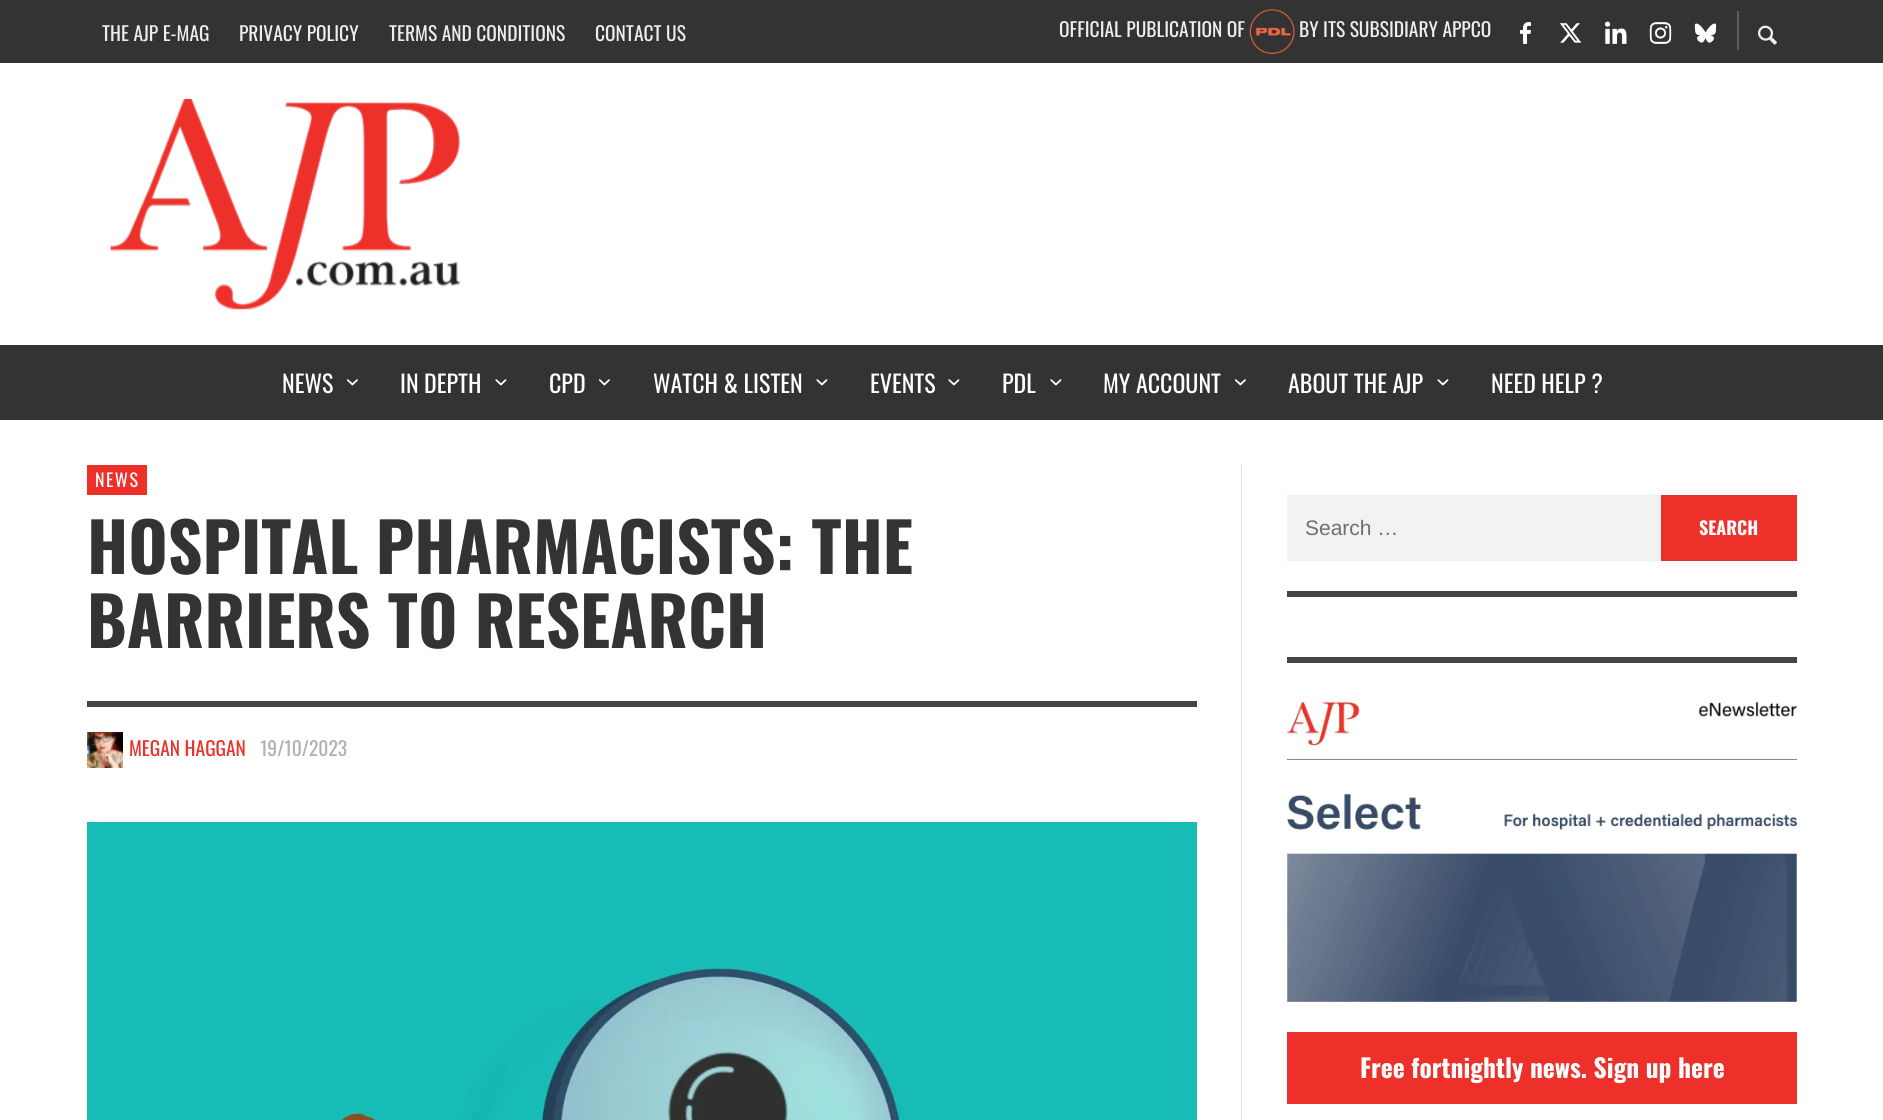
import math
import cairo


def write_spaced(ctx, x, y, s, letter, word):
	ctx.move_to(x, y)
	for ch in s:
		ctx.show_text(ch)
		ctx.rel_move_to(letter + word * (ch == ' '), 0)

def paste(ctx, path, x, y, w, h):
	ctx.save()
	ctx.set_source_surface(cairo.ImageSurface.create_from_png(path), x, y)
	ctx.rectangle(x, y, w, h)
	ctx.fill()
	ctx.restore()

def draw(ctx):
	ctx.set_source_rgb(1, 1, 1)
	ctx.paint()
	ctx.set_source_rgb(0.2, 0.2, 0.2)
	ctx.rectangle(0, 0, 1883, 63)
	ctx.fill()
	ctx.select_font_face('Oswald')
	ctx.set_font_size(19.5)
	ctx.set_source_rgb(0.933, 0.933, 0.933)
	for x, y, s in [
		(102, 41, 'THE AJP E-MAG'),
		(239, 41, 'PRIVACY POLICY'),
		(389, 41, 'TERMS AND CONDITIONS'),
		(595, 41, 'CONTACT US'),
		(1059, 37, 'OFFICIAL PUBLICATION OF'),
	]:
		ctx.move_to(x, y)
		ctx.show_text(s)
	paste(ctx, 'media/1.png', 1249, 9, 46, 45)
	ctx.move_to(1299, 37)
	ctx.show_text('BY ITS SUBSIDIARY APPCO')
	paste(ctx, 'media/2.png', 1520, 22, 11, 22)
	paste(ctx, 'media/3.png', 1560, 23, 21, 20)
	paste(ctx, 'media/4.png', 1605, 21, 22, 23)
	paste(ctx, 'media/5.png', 1649, 22, 23, 22)
	paste(ctx, 'media/6.png', 1694, 23, 23, 20)
	ctx.set_source_rgb(0.369, 0.369, 0.369)
	ctx.rectangle(1737, 11, 2, 39)
	ctx.fill()
	paste(ctx, 'media/7.png', 1758, 25, 19, 20)
	paste(ctx, 'media/8.png', 109, 99, 351, 211)
	ctx.set_source_rgb(0.2, 0.2, 0.2)
	ctx.rectangle(0, 345, 1883, 75)
	ctx.fill()
	ctx.set_font_size(24)
	ctx.set_source_rgb(1, 1, 1)
	ctx.move_to(282, 393)
	ctx.show_text('NEWS')
	paste(ctx, 'media/9.png', 346, 379, 12, 7)
	ctx.move_to(400, 393)
	ctx.show_text('IN DEPTH')
	paste(ctx, 'media/10.png', 495, 379, 12, 7)
	ctx.move_to(549, 393)
	ctx.show_text('CPD')
	paste(ctx, 'media/9.png', 598, 379, 12, 7)
	ctx.move_to(653, 393)
	ctx.show_text('WATCH & LISTEN')
	paste(ctx, 'media/10.png', 816, 379, 12, 7)
	ctx.move_to(870, 393)
	ctx.show_text('EVENTS')
	paste(ctx, 'media/10.png', 948, 379, 12, 7)
	ctx.move_to(1002, 393)
	ctx.show_text('PDL')
	paste(ctx, 'media/10.png', 1050, 379, 12, 7)
	ctx.move_to(1103, 393)
	ctx.show_text('MY ACCOUNT')
	paste(ctx, 'media/9.png', 1234, 379, 12, 7)
	ctx.move_to(1288, 393)
	ctx.show_text('ABOUT THE AJP')
	paste(ctx, 'media/10.png', 1437, 379, 12, 7)
	ctx.move_to(1491, 393)
	ctx.show_text('NEED HELP ?')
	ctx.set_source_rgb(0.929, 0.188, 0.161)
	ctx.rectangle(87, 465, 60, 30)
	ctx.fill()
	ctx.set_font_size(18)
	ctx.set_source_rgb(1, 1, 1)
	write_spaced(ctx, 95, 487, 'NEWS', 1.5, 0)
	ctx.select_font_face('Oswald', cairo.FONT_SLANT_NORMAL, cairo.FONT_WEIGHT_BOLD)
	ctx.set_font_size(67.5)
	ctx.set_source_rgb(0.2, 0.2, 0.2)
	ctx.move_to(87, 574)
	ctx.show_text('HOSPITAL PHARMACISTS: THE')
	ctx.move_to(87, 648)
	ctx.show_text('BARRIERS TO RESEARCH')
	ctx.set_source_rgb(0.267, 0.267, 0.267)
	ctx.rectangle(87, 701, 1110, 6)
	ctx.fill()
	paste(ctx, 'media/11.png', 87, 732, 36, 36)
	ctx.select_font_face('Oswald')
	ctx.set_font_size(19.5)
	ctx.set_source_rgb(0.929, 0.188, 0.161)
	ctx.move_to(129, 756)
	ctx.show_text('MEGAN HAGGAN')
	ctx.set_source_rgb(0.69, 0.69, 0.69)
	ctx.move_to(260, 756)
	ctx.show_text('19/10/2023')
	paste(ctx, 'media/12.png', 87, 822, 1110, 298)
	ctx.set_source_rgb(0.882, 0.882, 0.882)
	ctx.rectangle(1241, 465, 1, 655)
	ctx.fill()
	ctx.set_source_rgb(0.949, 0.949, 0.949)
	ctx.rectangle(1287, 495, 374, 66)
	ctx.fill()
	ctx.select_font_face('Liberation Sans')
	ctx.set_font_size(21)
	ctx.set_source_rgb(0.435, 0.435, 0.435)
	ctx.move_to(1305, 535)
	ctx.show_text('Search …')
	ctx.set_source_rgb(0.929, 0.188, 0.161)
	ctx.rectangle(1661, 495, 136, 66)
	ctx.fill()
	ctx.select_font_face('Oswald', cairo.FONT_SLANT_NORMAL, cairo.FONT_WEIGHT_BOLD)
	ctx.set_font_size(18)
	ctx.set_source_rgb(1, 1, 1)
	ctx.move_to(1699, 535)
	ctx.show_text('SEARCH')
	ctx.set_source_rgb(0.267, 0.267, 0.267)
	ctx.rectangle(1287, 591, 510, 6)
	ctx.fill()
	ctx.rectangle(1287, 657, 510, 6)
	ctx.fill()
	paste(ctx, 'media/13.png', 1287, 700, 510, 302)
	ctx.set_source_rgb(0.929, 0.188, 0.161)
	ctx.rectangle(1287, 1032, 510, 72)
	ctx.fill()
	ctx.set_font_size(25.5)
	ctx.set_source_rgb(1, 1, 1)
	ctx.move_to(1360, 1078)
	ctx.show_text('Free fortnightly news. Sign up here')


surface = cairo.ImageSurface(cairo.FORMAT_RGB24, 1883, 1120)
ctx = cairo.Context(surface)
options = cairo.FontOptions()
options.set_hint_metrics(cairo.HINT_METRICS_OFF)
options.set_hint_style(cairo.HINT_STYLE_NONE)
ctx.set_font_options(options)
ctx.set_miter_limit(4)
draw(ctx)
surface.write_to_png('image.png')
